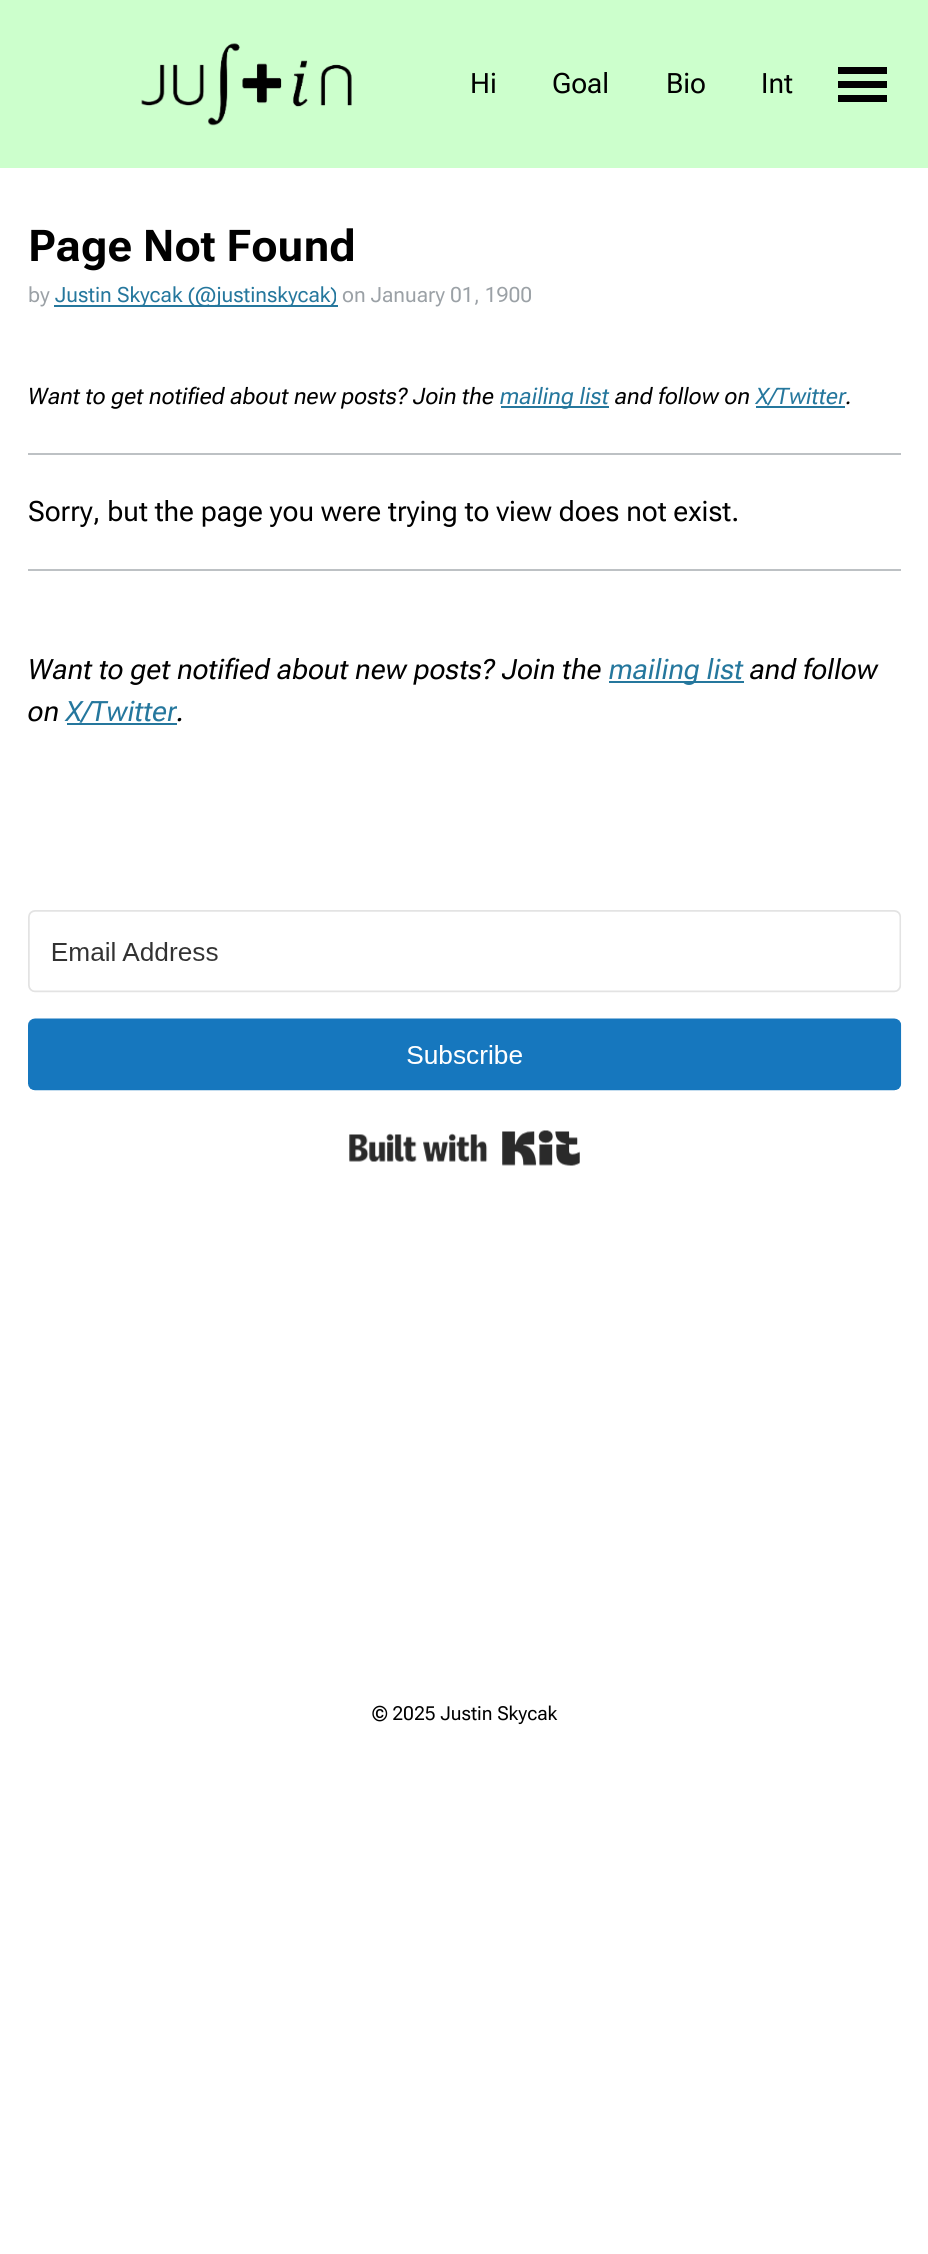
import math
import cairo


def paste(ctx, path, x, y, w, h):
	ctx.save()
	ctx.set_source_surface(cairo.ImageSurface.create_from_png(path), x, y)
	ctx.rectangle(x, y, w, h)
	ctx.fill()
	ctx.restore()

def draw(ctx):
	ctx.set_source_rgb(1, 1, 1)
	ctx.paint()
	ctx.set_source_rgb(0.8, 1, 0.8)
	ctx.rectangle(0, 0, 928, 168)
	ctx.fill()
	paste(ctx, 'media/1.png', 141, 43, 211, 83)
	ctx.select_font_face('Roboto Flex')
	ctx.set_font_size(28)
	ctx.set_source_rgb(0, 0, 0)
	for x, y, s in [
		(470, 93, 'Hi'),
		(552, 93, 'Goal'),
		(666, 93, 'Bio'),
		(761, 93, 'Int'),
	]:
		ctx.move_to(x, y)
		ctx.show_text(s)
	ctx.rectangle(838, 81, 49, 7)
	ctx.rectangle(838, 67, 49, 7)
	ctx.rectangle(838, 95, 49, 7)
	ctx.fill()
	ctx.select_font_face('Roboto Flex', cairo.FONT_SLANT_NORMAL, cairo.FONT_WEIGHT_BOLD)
	ctx.set_font_size(43.75)
	ctx.move_to(28, 261)
	ctx.show_text('Page Not Found')
	ctx.select_font_face('Roboto Flex')
	ctx.set_font_size(21)
	ctx.set_source_rgb(0.608, 0.631, 0.651)
	ctx.move_to(28, 302)
	ctx.show_text('by')
	ctx.set_source_rgb(0.145, 0.467, 0.616)
	ctx.rectangle(54, 305, 284, 2)
	ctx.fill()
	ctx.move_to(55, 302)
	ctx.show_text('Justin Skycak (@justinskycak)')
	ctx.set_source_rgb(0.608, 0.631, 0.651)
	ctx.move_to(342, 302)
	ctx.show_text('on January 01, 1900')
	ctx.select_font_face('Roboto Flex', cairo.FONT_SLANT_ITALIC)
	ctx.set_font_size(22.75)
	ctx.set_source_rgb(0, 0, 0)
	ctx.move_to(28, 404)
	ctx.show_text('Want to get notified about new posts? Join the')
	ctx.set_source_rgb(0.145, 0.467, 0.616)
	ctx.rectangle(501, 406, 108, 2)
	ctx.fill()
	ctx.move_to(500, 404)
	ctx.show_text('mailing list')
	ctx.set_source_rgb(0, 0, 0)
	ctx.move_to(615, 404)
	ctx.show_text('and follow on')
	ctx.set_source_rgb(0.145, 0.467, 0.616)
	ctx.move_to(756, 404)
	ctx.show_text('X/Twitter')
	ctx.set_source_rgb(0, 0, 0)
	ctx.move_to(846, 404)
	ctx.show_text('.')
	ctx.set_source_rgb(0.145, 0.467, 0.616)
	ctx.rectangle(756, 406, 89, 2)
	ctx.fill()
	ctx.set_source_rgb(0.741, 0.757, 0.769)
	ctx.rectangle(28, 453, 873, 2)
	ctx.fill()
	ctx.select_font_face('Roboto Flex')
	ctx.set_font_size(28)
	ctx.set_source_rgb(0, 0, 0)
	ctx.move_to(28, 521)
	ctx.show_text('Sorry, but the page you were trying to view does not exist.')
	ctx.set_source_rgb(0.741, 0.757, 0.769)
	ctx.rectangle(28, 569, 873, 2)
	ctx.fill()
	ctx.select_font_face('Roboto Flex', cairo.FONT_SLANT_ITALIC)
	ctx.set_source_rgb(0, 0, 0)
	ctx.move_to(28, 679)
	ctx.show_text('Want to get notified about new posts? Join the')
	ctx.set_source_rgb(0.145, 0.467, 0.616)
	ctx.rectangle(609, 681, 135, 2)
	ctx.fill()
	ctx.move_to(609, 679)
	ctx.show_text('mailing list')
	ctx.set_source_rgb(0, 0, 0)
	ctx.move_to(750, 679)
	ctx.show_text('and follow')
	ctx.move_to(28, 721)
	ctx.show_text('on')
	ctx.set_source_rgb(0.145, 0.467, 0.616)
	ctx.move_to(66, 721)
	ctx.show_text('X/Twitter')
	ctx.set_source_rgb(0, 0, 0)
	ctx.move_to(177, 721)
	ctx.show_text('.')
	ctx.set_source_rgb(0.145, 0.467, 0.616)
	ctx.rectangle(67, 723, 110, 2)
	ctx.fill()
	paste(ctx, 'media/2.png', 28, 910, 874, 256)
	ctx.select_font_face('Roboto Flex')
	ctx.set_font_size(19.25)
	ctx.set_source_rgb(0, 0, 0)
	ctx.move_to(372, 1720)
	ctx.show_text('© 2025 Justin Skycak')


surface = cairo.ImageSurface(cairo.FORMAT_RGB24, 928, 2254)
ctx = cairo.Context(surface)
options = cairo.FontOptions()
options.set_hint_metrics(cairo.HINT_METRICS_OFF)
options.set_hint_style(cairo.HINT_STYLE_NONE)
ctx.set_font_options(options)
ctx.set_miter_limit(4)
draw(ctx)
surface.write_to_png('image.png')
